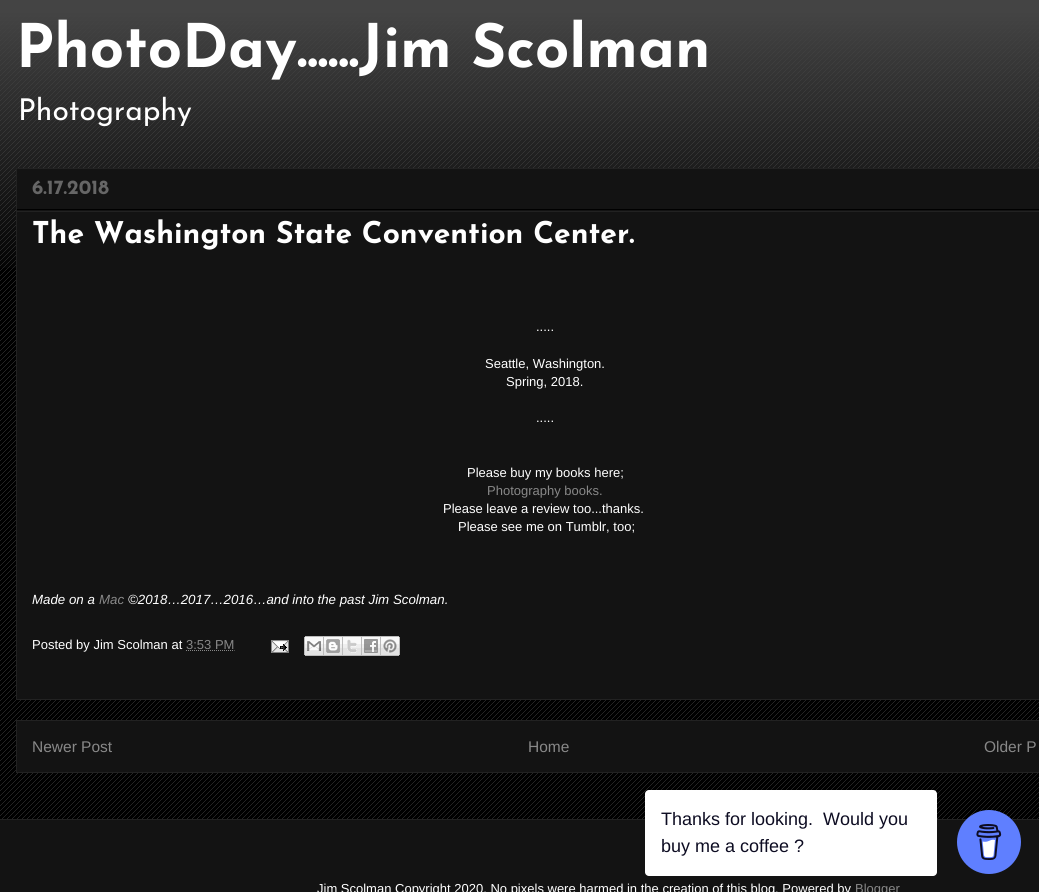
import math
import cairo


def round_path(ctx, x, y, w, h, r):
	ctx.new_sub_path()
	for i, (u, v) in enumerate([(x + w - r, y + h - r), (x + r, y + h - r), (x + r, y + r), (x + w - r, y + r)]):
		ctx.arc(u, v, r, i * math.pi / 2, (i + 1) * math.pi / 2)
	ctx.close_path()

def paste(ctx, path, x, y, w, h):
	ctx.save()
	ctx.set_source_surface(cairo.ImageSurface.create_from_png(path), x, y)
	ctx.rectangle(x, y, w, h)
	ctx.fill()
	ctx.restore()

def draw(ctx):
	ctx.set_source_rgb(0, 0, 0)
	ctx.paint()
	paste(ctx, 'media/1.png', 0, 13, 1039, 806)
	paste(ctx, 'media/2.png', 0, 0, 1039, 268)
	ctx.select_font_face('Josefin Sans', cairo.FONT_SLANT_NORMAL, cairo.FONT_WEIGHT_BOLD)
	ctx.set_font_size(60)
	ctx.set_source_rgb(1, 1, 1)
	ctx.move_to(16, 67)
	ctx.show_text('PhotoDay......Jim Scolman')
	ctx.select_font_face('Josefin Sans')
	ctx.set_font_size(30)
	ctx.move_to(18, 120)
	ctx.show_text('Photography')
	ctx.set_source_rgb(0.078, 0.078, 0.078)
	ctx.rectangle(16.5, 168.5, 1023, 531)
	ctx.fill_preserve()
	ctx.set_source_rgb(0.133, 0.133, 0.133)
	ctx.set_line_width(1)
	ctx.stroke()
	ctx.set_source_rgb(0, 0, 0)
	ctx.rectangle(17, 209, 1022, 1)
	ctx.fill()
	ctx.select_font_face('Josefin Sans', cairo.FONT_SLANT_NORMAL, cairo.FONT_WEIGHT_BOLD)
	ctx.set_font_size(20)
	ctx.set_source_rgb(0.4, 0.4, 0.4)
	ctx.move_to(32, 194)
	ctx.show_text('6.17.2018')
	ctx.set_source_rgb(0.133, 0.133, 0.133)
	ctx.rectangle(17, 211, 1022, 1)
	ctx.fill()
	ctx.set_font_size(30)
	ctx.set_source_rgb(1, 1, 1)
	ctx.move_to(32, 243)
	ctx.show_text('The Washington State Convention Center.')
	ctx.select_font_face('Liberation Sans')
	ctx.set_font_size(13)
	for x, y, s in [
		(536, 331, '.....'),
		(485, 368, 'Seattle, Washington.'),
		(506, 386, 'Spring, 2018.'),
		(536, 422, '.....'),
		(467, 477, 'Please buy my books here;'),
	]:
		ctx.move_to(x, y)
		ctx.show_text(s)
	ctx.set_source_rgb(0.533, 0.533, 0.533)
	ctx.move_to(487, 495)
	ctx.show_text('Photography books.')
	ctx.set_source_rgb(1, 1, 1)
	ctx.move_to(443, 513)
	ctx.show_text('Please leave a review too...thanks.')
	ctx.move_to(458, 531)
	ctx.show_text('Please see me on Tumblr, too;')
	ctx.select_font_face('Liberation Sans', cairo.FONT_SLANT_ITALIC)
	ctx.set_font_size(13.3)
	ctx.move_to(32, 604)
	ctx.show_text('Made on a')
	ctx.set_source_rgb(0.533, 0.533, 0.533)
	ctx.move_to(99, 604)
	ctx.show_text('Mac')
	ctx.set_source_rgb(1, 1, 1)
	ctx.move_to(128, 604)
	ctx.show_text('©2018…2017…2016…and into the past Jim Scolman.')
	ctx.select_font_face('Liberation Sans')
	ctx.set_font_size(13)
	ctx.move_to(32, 649)
	ctx.show_text('Posted by Jim Scolman at')
	ctx.set_source_rgb(0.533, 0.533, 0.533)
	ctx.move_to(186, 649)
	ctx.show_text('3:53 PM')
	ctx.new_path()
	ctx.move_to(186, 650.5)
	ctx.line_to(234.5, 650.5)
	ctx.set_dash([1, 1])
	ctx.stroke()
	paste(ctx, 'media/3.png', 271, 640, 18, 13)
	paste(ctx, 'media/4.png', 304, 636, 20, 20)
	paste(ctx, 'media/5.png', 324, 636, 19, 20)
	paste(ctx, 'media/6.png', 343, 636, 19, 20)
	paste(ctx, 'media/7.png', 362, 636, 19, 20)
	paste(ctx, 'media/8.png', 381, 636, 19, 20)
	ctx.set_source_rgb(0.078, 0.078, 0.078)
	ctx.rectangle(16.5, 720.5, 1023, 52)
	ctx.fill_preserve()
	ctx.set_source_rgb(0.133, 0.133, 0.133)
	ctx.set_dash([])
	ctx.stroke()
	ctx.set_font_size(15.5)
	ctx.set_source_rgb(0.533, 0.533, 0.533)
	for x, y, s in [
		(32, 752, 'Newer Post'),
		(528, 752, 'Home'),
		(984, 752, 'Older P'),
	]:
		ctx.move_to(x, y)
		ctx.show_text(s)
	ctx.set_source_rgb(0.078, 0.078, 0.078)
	ctx.rectangle(0, 820, 1039, 72)
	ctx.fill()
	ctx.set_source_rgb(0.133, 0.133, 0.133)
	ctx.rectangle(0, 819, 1039, 1)
	ctx.fill()
	ctx.set_font_size(13)
	ctx.set_source_rgb(1, 1, 1)
	ctx.move_to(317, 893)
	ctx.show_text('Jim Scolman Copyright 2020. No pixels were harmed in the creation of this blog. Powered by')
	ctx.set_source_rgb(0.533, 0.533, 0.533)
	ctx.move_to(855, 893)
	ctx.show_text('Blogger')
	ctx.set_source_rgb(1, 1, 1)
	round_path(ctx, 645, 790, 292, 86, 4)
	ctx.fill()
	ctx.set_font_size(18)
	ctx.set_source_rgb(0.051, 0.047, 0.133)
	ctx.move_to(661, 825)
	ctx.show_text('Thanks for looking.  Would you')
	ctx.move_to(661, 852)
	ctx.show_text('buy me a coffee ?')
	ctx.set_source_rgb(0.373, 0.498, 1)
	ctx.new_path()
	ctx.arc(989, 842, 32, 0, 2 * math.pi)
	ctx.fill()
	paste(ctx, 'media/9.png', 976, 824, 26, 36)


surface = cairo.ImageSurface(cairo.FORMAT_RGB24, 1039, 892)
ctx = cairo.Context(surface)
options = cairo.FontOptions()
options.set_hint_metrics(cairo.HINT_METRICS_OFF)
options.set_hint_style(cairo.HINT_STYLE_NONE)
ctx.set_font_options(options)
ctx.set_miter_limit(4)
draw(ctx)
surface.write_to_png('image.png')
